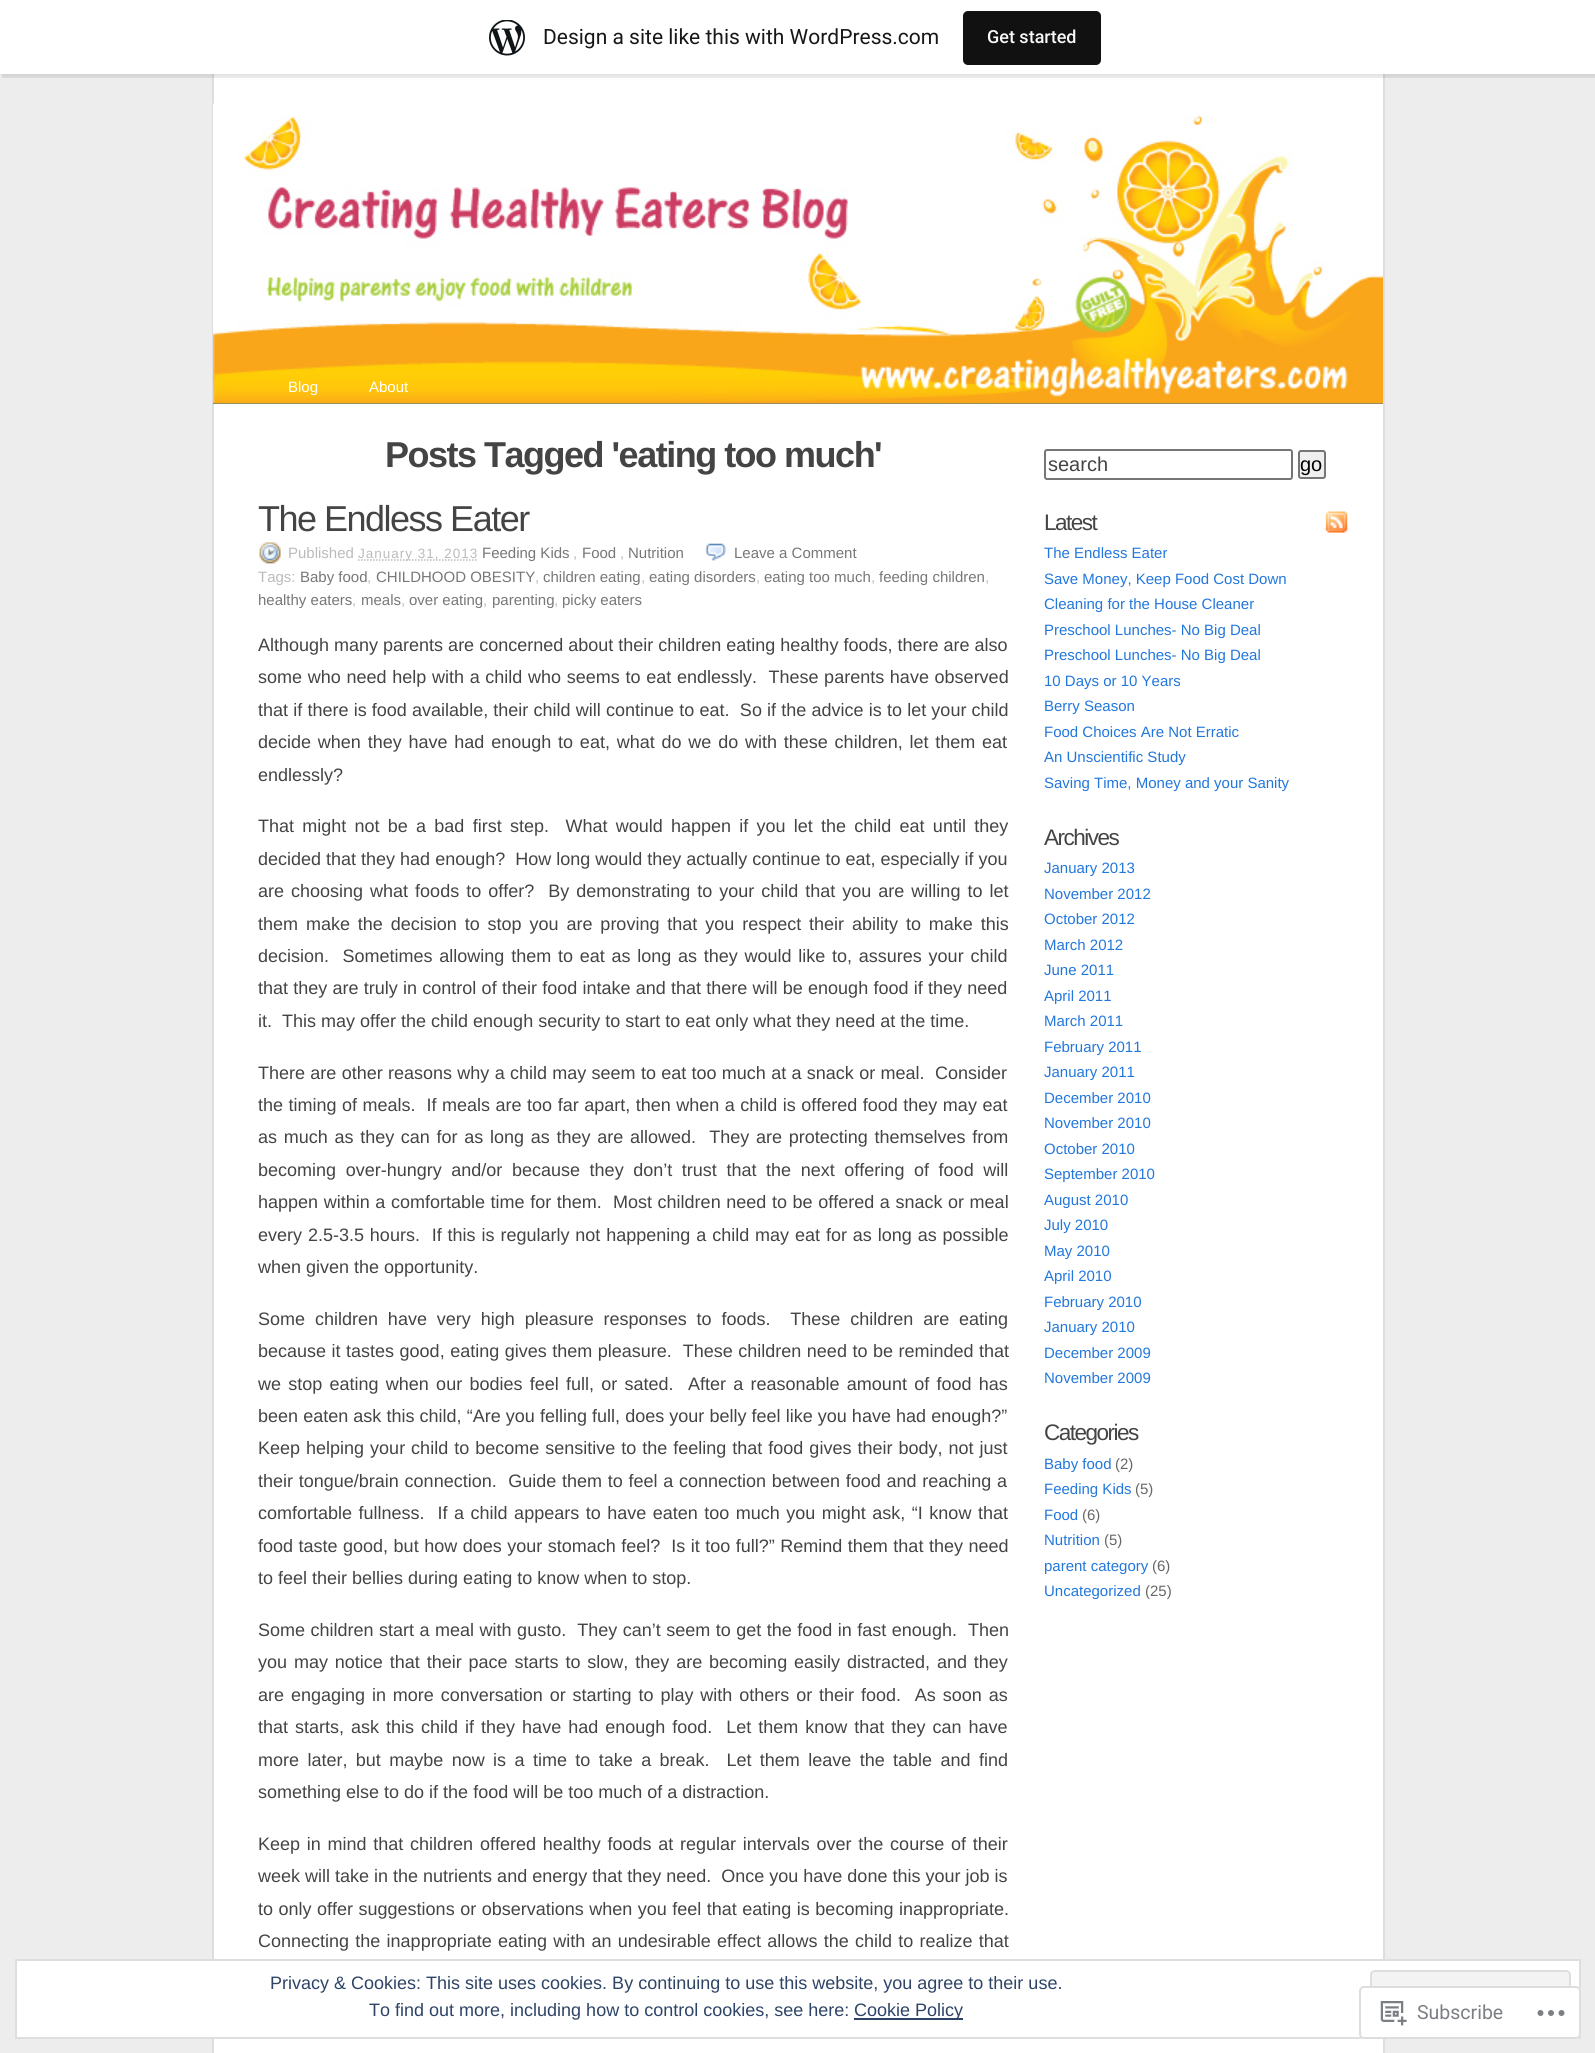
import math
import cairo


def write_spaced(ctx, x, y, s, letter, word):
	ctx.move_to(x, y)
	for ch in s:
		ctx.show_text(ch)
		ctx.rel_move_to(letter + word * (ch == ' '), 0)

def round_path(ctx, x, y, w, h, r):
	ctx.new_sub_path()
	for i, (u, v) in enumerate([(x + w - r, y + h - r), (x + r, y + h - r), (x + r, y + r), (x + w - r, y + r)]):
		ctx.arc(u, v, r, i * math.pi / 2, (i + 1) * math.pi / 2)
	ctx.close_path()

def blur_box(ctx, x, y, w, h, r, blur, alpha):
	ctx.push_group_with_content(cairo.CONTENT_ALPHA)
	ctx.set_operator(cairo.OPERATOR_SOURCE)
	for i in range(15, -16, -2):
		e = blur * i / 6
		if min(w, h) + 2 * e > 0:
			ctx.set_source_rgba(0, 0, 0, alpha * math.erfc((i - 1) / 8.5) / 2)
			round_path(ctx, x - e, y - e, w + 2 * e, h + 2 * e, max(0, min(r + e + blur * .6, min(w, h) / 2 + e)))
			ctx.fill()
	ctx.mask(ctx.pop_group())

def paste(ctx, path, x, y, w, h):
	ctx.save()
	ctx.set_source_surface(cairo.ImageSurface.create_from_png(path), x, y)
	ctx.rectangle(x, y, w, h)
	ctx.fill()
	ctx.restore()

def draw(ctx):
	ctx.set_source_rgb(0.929, 0.929, 0.929)
	ctx.paint()
	ctx.set_source_rgb(1, 1, 1)
	ctx.rectangle(214, 74, 1169, 1979)
	ctx.fill()
	ctx.set_source_rgb(0.867, 0.867, 0.867)
	ctx.rectangle(1383, 74, 2, 1979)
	ctx.rectangle(212, 74, 2, 1979)
	ctx.fill()
	ctx.set_source_rgb(0, 0, 0)
	blur_box(ctx, 0, 2, 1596, 73, 0, 1.5, 0.05)
	ctx.set_source_rgba(0, 0, 0, 0.08)
	ctx.new_path()
	ctx.move_to(2, 74)
	ctx.line_to(2, 78)
	ctx.line_to(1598, 78)
	ctx.line_to(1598, 5)
	ctx.line_to(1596, 5)
	ctx.line_to(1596, 74)
	ctx.close_path()
	ctx.fill()
	ctx.set_source_rgb(1, 1, 1)
	ctx.rectangle(0, 0, 1595, 74)
	ctx.fill()
	paste(ctx, 'media/1.png', 489, 20, 36, 36)
	ctx.select_font_face('Roboto')
	ctx.set_font_size(21)
	ctx.set_source_rgb(0.09, 0.09, 0.09)
	ctx.move_to(543, 44)
	ctx.show_text('Design a site like this with WordPress.com')
	ctx.set_source_rgb(0.067, 0.067, 0.067)
	round_path(ctx, 963, 11, 138, 54, 5)
	ctx.fill()
	ctx.select_font_face('Roboto Medium')
	ctx.set_font_size(18)
	ctx.set_source_rgb(0.965, 0.969, 0.969)
	ctx.move_to(987, 43)
	ctx.show_text('Get started')
	ctx.set_source_rgb(0.2, 0.443, 0.639)
	ctx.rectangle(213, 403, 1170, 1)
	ctx.fill()
	paste(ctx, 'media/2.png', 213, 103, 1170, 301)
	ctx.select_font_face('Liberation Sans')
	ctx.set_font_size(15)
	ctx.set_source_rgb(1, 1, 1)
	ctx.move_to(288, 392)
	ctx.show_text('Blog')
	ctx.move_to(369, 392)
	ctx.show_text('About')
	ctx.select_font_face('Liberation Sans', cairo.FONT_SLANT_NORMAL, cairo.FONT_WEIGHT_BOLD)
	ctx.set_font_size(36)
	ctx.set_source_rgb(0.267, 0.267, 0.267)
	write_spaced(ctx, 385, 467, 'Posts Tagged \'eating too much\'', -1.5, 0)
	ctx.select_font_face('Liberation Sans')
	write_spaced(ctx, 258, 531, 'The Endless Eater', -1.5, 0)
	paste(ctx, 'media/3.png', 259, 542, 22, 22)
	ctx.set_font_size(15)
	ctx.set_source_rgb(0.733, 0.733, 0.733)
	ctx.move_to(288, 558)
	ctx.show_text('Published')
	ctx.new_path()
	ctx.move_to(358, 560)
	ctx.line_to(477.5, 560)
	ctx.set_line_width(1.5)
	ctx.set_dash([1.5, 1.5])
	ctx.stroke()
	ctx.set_font_size(13.5)
	write_spaced(ctx, 358, 558, 'January 31, 2013', 1, 0)
	ctx.set_font_size(15)
	ctx.set_source_rgb(0.467, 0.467, 0.467)
	ctx.move_to(482, 558)
	ctx.show_text('Feeding Kids')
	ctx.set_source_rgb(0.733, 0.733, 0.733)
	ctx.move_to(573, 558)
	ctx.show_text(',')
	ctx.set_source_rgb(0.467, 0.467, 0.467)
	ctx.move_to(582, 558)
	ctx.show_text('Food')
	ctx.set_source_rgb(0.733, 0.733, 0.733)
	ctx.move_to(620, 558)
	ctx.show_text(',')
	ctx.set_source_rgb(0.467, 0.467, 0.467)
	ctx.move_to(628, 558)
	ctx.show_text('Nutrition')
	paste(ctx, 'media/4.png', 705, 543, 22, 18)
	ctx.move_to(734, 558)
	ctx.show_text('Leave a Comment')
	ctx.set_source_rgb(0.733, 0.733, 0.733)
	ctx.move_to(258, 582)
	ctx.show_text('Tags:')
	ctx.set_source_rgb(0.467, 0.467, 0.467)
	ctx.move_to(300, 582)
	ctx.show_text('Baby food')
	ctx.set_source_rgb(0.733, 0.733, 0.733)
	ctx.move_to(367, 582)
	ctx.show_text(',')
	ctx.set_source_rgb(0.467, 0.467, 0.467)
	ctx.move_to(376, 582)
	ctx.show_text('CHILDHOOD OBESITY')
	ctx.set_source_rgb(0.733, 0.733, 0.733)
	ctx.move_to(535, 582)
	ctx.show_text(',')
	ctx.set_source_rgb(0.467, 0.467, 0.467)
	ctx.move_to(543, 582)
	ctx.show_text('children eating')
	ctx.set_source_rgb(0.733, 0.733, 0.733)
	ctx.move_to(641, 582)
	ctx.show_text(',')
	ctx.set_source_rgb(0.467, 0.467, 0.467)
	ctx.move_to(649, 582)
	ctx.show_text('eating disorders')
	ctx.set_source_rgb(0.733, 0.733, 0.733)
	ctx.move_to(756, 582)
	ctx.show_text(',')
	ctx.set_source_rgb(0.467, 0.467, 0.467)
	ctx.move_to(764, 582)
	ctx.show_text('eating too much')
	ctx.set_source_rgb(0.733, 0.733, 0.733)
	ctx.move_to(871, 582)
	ctx.show_text(',')
	ctx.set_source_rgb(0.467, 0.467, 0.467)
	ctx.move_to(879, 582)
	ctx.show_text('feeding children')
	ctx.set_source_rgb(0.733, 0.733, 0.733)
	ctx.move_to(985, 582)
	ctx.show_text(',')
	ctx.set_source_rgb(0.467, 0.467, 0.467)
	ctx.move_to(258, 605)
	ctx.show_text('healthy eaters')
	ctx.set_source_rgb(0.733, 0.733, 0.733)
	ctx.move_to(352, 605)
	ctx.show_text(',')
	ctx.set_source_rgb(0.467, 0.467, 0.467)
	ctx.move_to(361, 605)
	ctx.show_text('meals')
	ctx.set_source_rgb(0.733, 0.733, 0.733)
	ctx.move_to(401, 605)
	ctx.show_text(',')
	ctx.set_source_rgb(0.467, 0.467, 0.467)
	ctx.move_to(409, 605)
	ctx.show_text('over eating')
	ctx.set_source_rgb(0.733, 0.733, 0.733)
	ctx.move_to(483, 605)
	ctx.show_text(',')
	ctx.set_source_rgb(0.467, 0.467, 0.467)
	ctx.move_to(492, 605)
	ctx.show_text('parenting')
	ctx.set_source_rgb(0.733, 0.733, 0.733)
	ctx.move_to(554, 605)
	ctx.show_text(',')
	ctx.set_source_rgb(0.467, 0.467, 0.467)
	ctx.move_to(562, 605)
	ctx.show_text('picky eaters')
	ctx.set_font_size(18)
	ctx.set_source_rgb(0.267, 0.267, 0.267)
	ctx.move_to(258, 651)
	ctx.show_text('Although many parents are concerned about their children eating healthy foods, there are also')
	write_spaced(ctx, 258, 683, 'some who need help with a child who seems to eat endlessly.  These parents have observed', 0, 0.7)
	write_spaced(ctx, 258, 716, 'that if there is food available, their child will continue to eat.  So if the advice is to let your child', 0, 0.2)
	write_spaced(ctx, 258, 748, 'decide when they have had enough to eat, what do we do with these children, let them eat', 0, 1.8)
	ctx.move_to(258, 781)
	ctx.show_text('endlessly?')
	write_spaced(ctx, 258, 832, 'That might not be a bad first step.  What would happen if you let the child eat until they', 0, 3.25)
	ctx.move_to(258, 865)
	ctx.show_text('decided that they had enough?  How long would they actually continue to eat, especially if you')
	write_spaced(ctx, 258, 897, 'are choosing what foods to offer?  By demonstrating to your child that you are willing to let', 0, 2)
	write_spaced(ctx, 258, 930, 'them make the decision to stop you are proving that you respect their ability to make this', 0, 2.9)
	write_spaced(ctx, 258, 962, 'decision.  Sometimes allowing them to eat as long as they would like to, assures your child', 0, 1.75)
	write_spaced(ctx, 258, 994, 'that they are truly in control of their food intake and that there will be enough food if they need', 0, 0.25)
	ctx.move_to(258, 1027)
	ctx.show_text('it.  This may offer the child enough security to start to eat only what they need at the time.')
	write_spaced(ctx, 258, 1079, 'There are other reasons why a child may seem to eat too much at a snack or meal.  Consider', 0, 0.3)
	write_spaced(ctx, 258, 1111, 'the timing of meals.  If meals are too far apart, then when a child is offered food they may eat', 0, 0.5)
	write_spaced(ctx, 258, 1143, 'as much as they can for as long as they are allowed.  They are protecting themselves from', 0, 1.7)
	write_spaced(ctx, 258, 1176, 'becoming over-hungry and/or because they don’t trust that the next offering of food will', 0, 4.6)
	write_spaced(ctx, 258, 1208, 'happen within a comfortable time for them.  Most children need to be offered a snack or meal', 0, 0.6)
	write_spaced(ctx, 258, 1241, 'every 2.5-3.5 hours.  If this is regularly not happening a child may eat for as long as possible', 0, 0.9)
	ctx.move_to(258, 1273)
	ctx.show_text('when given the opportunity.')
	write_spaced(ctx, 258, 1325, 'Some children have very high pleasure responses to foods.  These children are eating', 0, 4.9)
	write_spaced(ctx, 258, 1357, 'because it tastes good, eating gives them pleasure.  These children need to be reminded that', 0, 0.5)
	write_spaced(ctx, 258, 1390, 'we stop eating when our bodies feel full, or sated.  After a reasonable amount of food has', 0, 2.25)
	write_spaced(ctx, 258, 1422, 'been eaten ask this child, “Are you felling full, does your belly feel like you have had enough?”', 0, 0.1)
	write_spaced(ctx, 258, 1454, 'Keep helping your child to become sensitive to the feeling that food gives their body, not just', 0, 1)
	write_spaced(ctx, 258, 1487, 'their tongue/brain connection.  Guide them to feel a connection between food and reaching a', 0, 0.75)
	write_spaced(ctx, 258, 1519, 'comfortable fullness.  If a child appears to have eaten too much you might ask, “I know that', 0, 1.5)
	write_spaced(ctx, 258, 1552, 'food taste good, but how does your stomach feel?  Is it too full?” Remind them that they need', 0, 0.5)
	ctx.move_to(258, 1584)
	ctx.show_text('to feel their bellies during eating to know when to stop.')
	write_spaced(ctx, 258, 1636, 'Some children start a meal with gusto.  They can’t seem to get the food in fast enough.  Then', 0, 0.5)
	write_spaced(ctx, 258, 1668, 'you may notice that their pace starts to slow, they are becoming easily distracted, and they', 0, 1.9)
	write_spaced(ctx, 258, 1701, 'are engaging in more conversation or starting to play with others or their food.  As soon as', 0, 1.9)
	write_spaced(ctx, 258, 1733, 'that starts, ask this child if they have had enough food.  Let them know that they can have', 0, 2)
	write_spaced(ctx, 258, 1766, 'more later, but maybe now is a time to take a break.  Let them leave the table and find', 0, 3.4)
	ctx.move_to(258, 1798)
	ctx.show_text('something else to do if the food will be too much of a distraction.')
	write_spaced(ctx, 258, 1850, 'Keep in mind that children offered healthy foods at regular intervals over the course of their', 0, 1.75)
	ctx.move_to(258, 1882)
	ctx.show_text('week will take in the nutrients and energy that they need.  Once you have done this your job is')
	write_spaced(ctx, 258, 1915, 'to only offer suggestions or observations when you feel that eating is becoming inappropriate.', 0, 0.5)
	write_spaced(ctx, 258, 1947, 'Connecting the inappropriate eating with an undesirable effect allows the child to realize that', 0, 1.25)
	round_path(ctx, 1045, 450, 247, 29, 2)
	ctx.set_source_rgb(0.463, 0.463, 0.463)
	ctx.set_line_width(2)
	ctx.set_dash([])
	ctx.stroke()
	ctx.set_font_size(20)
	ctx.set_source_rgb(0.267, 0.267, 0.267)
	ctx.move_to(1048, 471)
	ctx.show_text('search')
	ctx.set_source_rgb(0.937, 0.937, 0.937)
	round_path(ctx, 1299, 451, 26, 27, 2)
	ctx.fill_preserve()
	ctx.set_source_rgb(0.463, 0.463, 0.463)
	ctx.stroke()
	ctx.set_source_rgb(0, 0, 0)
	ctx.move_to(1300, 471)
	ctx.show_text('go')
	ctx.set_font_size(22.5)
	ctx.set_source_rgb(0.267, 0.267, 0.267)
	write_spaced(ctx, 1044, 530, 'Latest', -1.5, 0)
	paste(ctx, 'media/5.png', 1325, 511, 23, 22)
	ctx.set_font_size(15)
	ctx.set_source_rgb(0.133, 0.467, 0.867)
	for x, y, s in [
		(1044, 558, 'The Endless Eater'),
		(1044, 584, 'Save Money, Keep Food Cost Down'),
		(1044, 609, 'Cleaning for the House Cleaner'),
		(1044, 635, 'Preschool Lunches- No Big Deal'),
		(1044, 660, 'Preschool Lunches- No Big Deal'),
		(1044, 686, '10 Days or 10 Years'),
		(1044, 711, 'Berry Season'),
		(1044, 737, 'Food Choices Are Not Erratic'),
		(1044, 762, 'An Unscientific Study'),
		(1044, 788, 'Saving Time, Money and your Sanity'),
	]:
		ctx.move_to(x, y)
		ctx.show_text(s)
	ctx.set_font_size(22.5)
	ctx.set_source_rgb(0.267, 0.267, 0.267)
	write_spaced(ctx, 1044, 845, 'Archives', -1.5, 0)
	ctx.set_font_size(15)
	ctx.set_source_rgb(0.133, 0.467, 0.867)
	for x, y, s in [
		(1044, 873, 'January 2013'),
		(1044, 899, 'November 2012'),
		(1044, 924, 'October 2012'),
		(1044, 950, 'March 2012'),
		(1044, 975, 'June 2011'),
		(1044, 1001, 'April 2011'),
		(1044, 1026, 'March 2011'),
		(1044, 1052, 'February 2011'),
		(1044, 1077, 'January 2011'),
		(1044, 1103, 'December 2010'),
		(1044, 1128, 'November 2010'),
		(1044, 1154, 'October 2010'),
		(1044, 1179, 'September 2010'),
		(1044, 1205, 'August 2010'),
		(1044, 1230, 'July 2010'),
		(1044, 1256, 'May 2010'),
		(1044, 1281, 'April 2010'),
		(1044, 1307, 'February 2010'),
		(1044, 1332, 'January 2010'),
		(1044, 1358, 'December 2009'),
		(1044, 1383, 'November 2009'),
	]:
		ctx.move_to(x, y)
		ctx.show_text(s)
	ctx.set_font_size(22.5)
	ctx.set_source_rgb(0.267, 0.267, 0.267)
	write_spaced(ctx, 1044, 1440, 'Categories', -1.5, 0)
	ctx.set_font_size(15)
	ctx.set_source_rgb(0.133, 0.467, 0.867)
	ctx.move_to(1044, 1469)
	ctx.show_text('Baby food')
	ctx.set_source_rgb(0.4, 0.4, 0.4)
	ctx.move_to(1115, 1469)
	ctx.show_text('(2)')
	ctx.set_source_rgb(0.133, 0.467, 0.867)
	ctx.move_to(1044, 1494)
	ctx.show_text('Feeding Kids')
	ctx.set_source_rgb(0.4, 0.4, 0.4)
	ctx.move_to(1135, 1494)
	ctx.show_text('(5)')
	ctx.set_source_rgb(0.133, 0.467, 0.867)
	ctx.move_to(1044, 1520)
	ctx.show_text('Food')
	ctx.set_source_rgb(0.4, 0.4, 0.4)
	ctx.move_to(1082, 1520)
	ctx.show_text('(6)')
	ctx.set_source_rgb(0.133, 0.467, 0.867)
	ctx.move_to(1044, 1545)
	ctx.show_text('Nutrition')
	ctx.set_source_rgb(0.4, 0.4, 0.4)
	ctx.move_to(1104, 1545)
	ctx.show_text('(5)')
	ctx.set_source_rgb(0.133, 0.467, 0.867)
	ctx.move_to(1044, 1571)
	ctx.show_text('parent category')
	ctx.set_source_rgb(0.4, 0.4, 0.4)
	ctx.move_to(1152, 1571)
	ctx.show_text('(6)')
	ctx.set_source_rgb(0.133, 0.467, 0.867)
	ctx.move_to(1044, 1596)
	ctx.show_text('Uncategorized')
	ctx.set_source_rgb(0.4, 0.4, 0.4)
	ctx.move_to(1145, 1596)
	ctx.show_text('(25)')
	ctx.set_source_rgb(1, 1, 1)
	ctx.rectangle(16, 1960, 1564, 78)
	ctx.fill_preserve()
	ctx.set_source_rgb(0.871, 0.871, 0.871)
	ctx.stroke()
	ctx.set_font_size(18)
	ctx.set_source_rgb(0.18, 0.267, 0.404)
	ctx.move_to(270, 1989)
	ctx.show_text('Privacy & Cookies: This site uses cookies. By continuing to use this website, you agree to their use.')
	ctx.set_source_rgb(0.953, 0.953, 0.953)
	round_path(ctx, 1371, 1971, 199, 56, 4)
	ctx.fill_preserve()
	ctx.set_source_rgb(0.871, 0.871, 0.871)
	ctx.stroke()
	ctx.set_source_rgb(0.18, 0.267, 0.404)
	ctx.move_to(369, 2016)
	ctx.show_text('To find out more, including how to control cookies, see here:')
	ctx.rectangle(854, 2018, 109, 2)
	ctx.fill()
	ctx.move_to(854, 2016)
	ctx.show_text('Cookie Policy')
	ctx.set_source_rgba(1, 1, 1, 0.98)
	round_path(ctx, 1359, 1986, 222, 53, 5)
	ctx.fill()
	round_path(ctx, 1360, 1987, 220, 51, 4)
	ctx.set_source_rgba(0.863, 0.863, 0.871, 0.98)
	ctx.stroke()
	paste(ctx, 'media/6.png', 1380, 2001, 27, 25)
	ctx.select_font_face('Roboto')
	ctx.set_font_size(19.5)
	ctx.set_source_rgb(0.482, 0.498, 0.518)
	ctx.move_to(1417, 2019)
	ctx.show_text('Subscribe')
	paste(ctx, 'media/7.png', 1537, 2010, 28, 6)


surface = cairo.ImageSurface(cairo.FORMAT_RGB24, 1595, 2053)
ctx = cairo.Context(surface)
options = cairo.FontOptions()
options.set_hint_metrics(cairo.HINT_METRICS_OFF)
options.set_hint_style(cairo.HINT_STYLE_NONE)
ctx.set_font_options(options)
ctx.set_miter_limit(4)
draw(ctx)
surface.write_to_png('image.png')
